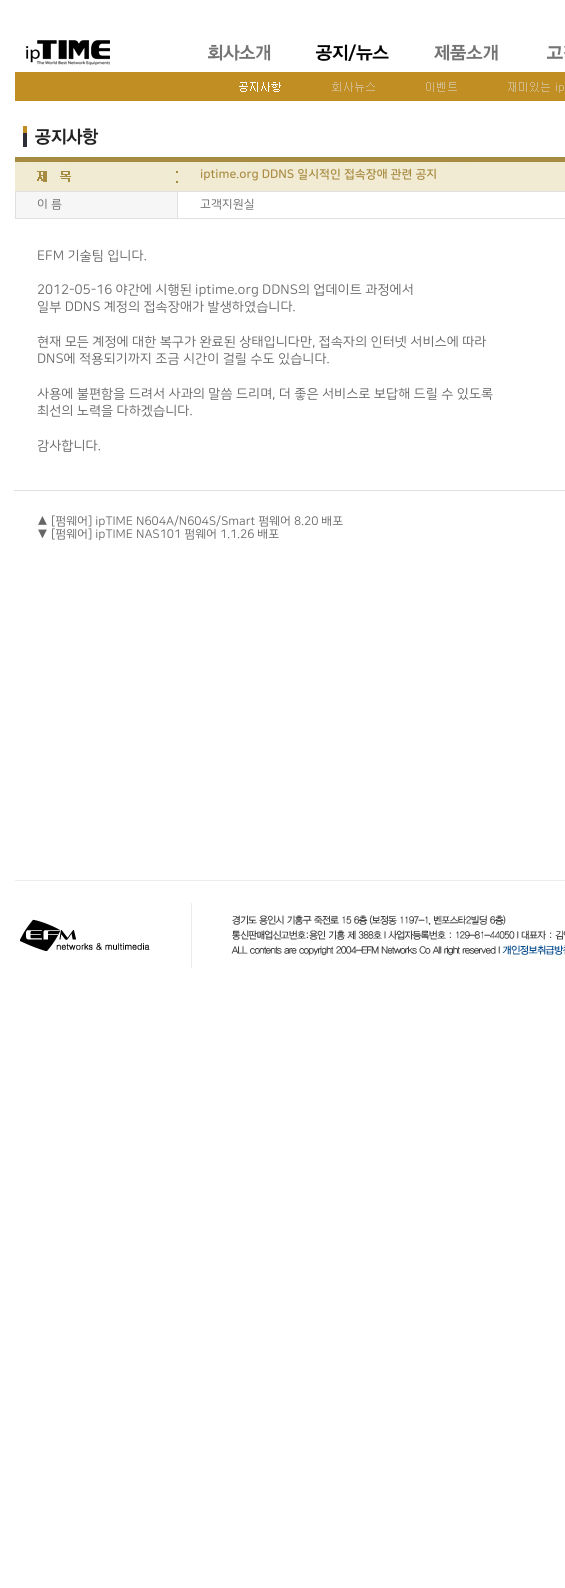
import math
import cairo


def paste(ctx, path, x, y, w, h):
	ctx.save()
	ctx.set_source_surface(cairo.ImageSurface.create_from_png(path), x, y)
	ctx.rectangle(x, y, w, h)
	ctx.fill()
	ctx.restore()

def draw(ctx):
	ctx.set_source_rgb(1, 1, 1)
	ctx.paint()
	paste(ctx, 'media/1.png', 26, 40, 84, 25)
	paste(ctx, 'media/2.png', 207, 44, 64, 17)
	paste(ctx, 'media/3.png', 315, 44, 74, 18)
	paste(ctx, 'media/4.png', 434, 44, 64, 17)
	paste(ctx, 'media/5.png', 546, 45, 19, 14)
	ctx.set_source_rgb(0.757, 0.557, 0.137)
	ctx.rectangle(15, 72, 550, 29)
	ctx.fill()
	paste(ctx, 'media/6.png', 239, 82, 42, 10)
	paste(ctx, 'media/7.png', 332, 82, 43, 10)
	paste(ctx, 'media/8.png', 426, 82, 31, 10)
	paste(ctx, 'media/9.png', 508, 82, 56, 11)
	paste(ctx, 'media/10.png', 23, 126, 76, 21)
	paste(ctx, 'media/11.png', 15, 157, 550, 35)
	ctx.select_font_face('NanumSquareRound', cairo.FONT_SLANT_NORMAL, cairo.FONT_WEIGHT_BOLD)
	ctx.set_font_size(12)
	ctx.set_source_rgb(0.659, 0.541, 0.255)
	ctx.move_to(200, 178)
	ctx.show_text('iptime.org DDNS 일시적인 접속장애 관련 공지')
	ctx.set_source_rgb(0.961, 0.961, 0.961)
	ctx.rectangle(16, 192, 161, 26)
	ctx.fill()
	ctx.set_source_rgb(0.878, 0.878, 0.878)
	ctx.rectangle(177, 218, 388, 1)
	ctx.rectangle(177, 192, 1, 27)
	ctx.rectangle(15, 218, 163, 1)
	ctx.rectangle(15, 192, 1, 27)
	ctx.fill()
	ctx.select_font_face('NanumSquareRound')
	ctx.set_source_rgb(0.4, 0.4, 0.4)
	ctx.move_to(37, 208)
	ctx.show_text('이 름')
	ctx.move_to(200, 208)
	ctx.show_text('고객지원실')
	ctx.set_font_size(13.35)
	for x, y, s in [
		(37, 260, 'EFM 기술팀 입니다.'),
		(37, 294, '2012-05-16 야간에 시행된 iptime.org DDNS의 업데이트 과정에서'),
		(37, 311, '일부 DDNS 계정의 접속장애가 발생하였습니다.'),
		(37, 346, '현재 모든 계정에 대한 복구가 완료된 상태입니다만, 접속자의 인터넷 서비스에 따라'),
		(37, 363, 'DNS에 적용되기까지 조금 시간이 걸릴 수도 있습니다.'),
		(37, 398, '사용에 불편함을 드려서 사과의 말씀 드리며, 더 좋은 서비스로 보답해 드릴 수 있도록'),
		(37, 415, '최선의 노력을 다하겠습니다.'),
		(37, 450, '감사합니다.'),
	]:
		ctx.move_to(x, y)
		ctx.show_text(s)
	ctx.set_source_rgb(0.878, 0.878, 0.878)
	ctx.rectangle(14, 490, 551, 1)
	ctx.fill()
	ctx.set_font_size(12)
	ctx.set_source_rgb(0.4, 0.4, 0.4)
	ctx.move_to(37, 525)
	ctx.show_text('▲ [펌웨어] ipTIME N604A/N604S/Smart 펌웨어 8.20 배포')
	ctx.move_to(37, 538)
	ctx.show_text('▼ [펌웨어] ipTIME NAS101 펌웨어 1.1.26 배포')
	paste(ctx, 'media/12.png', 15, 880, 550, 88)


surface = cairo.ImageSurface(cairo.FORMAT_RGB24, 565, 1588)
ctx = cairo.Context(surface)
options = cairo.FontOptions()
options.set_hint_metrics(cairo.HINT_METRICS_OFF)
options.set_hint_style(cairo.HINT_STYLE_NONE)
ctx.set_font_options(options)
ctx.set_miter_limit(4)
draw(ctx)
surface.write_to_png('image.png')
